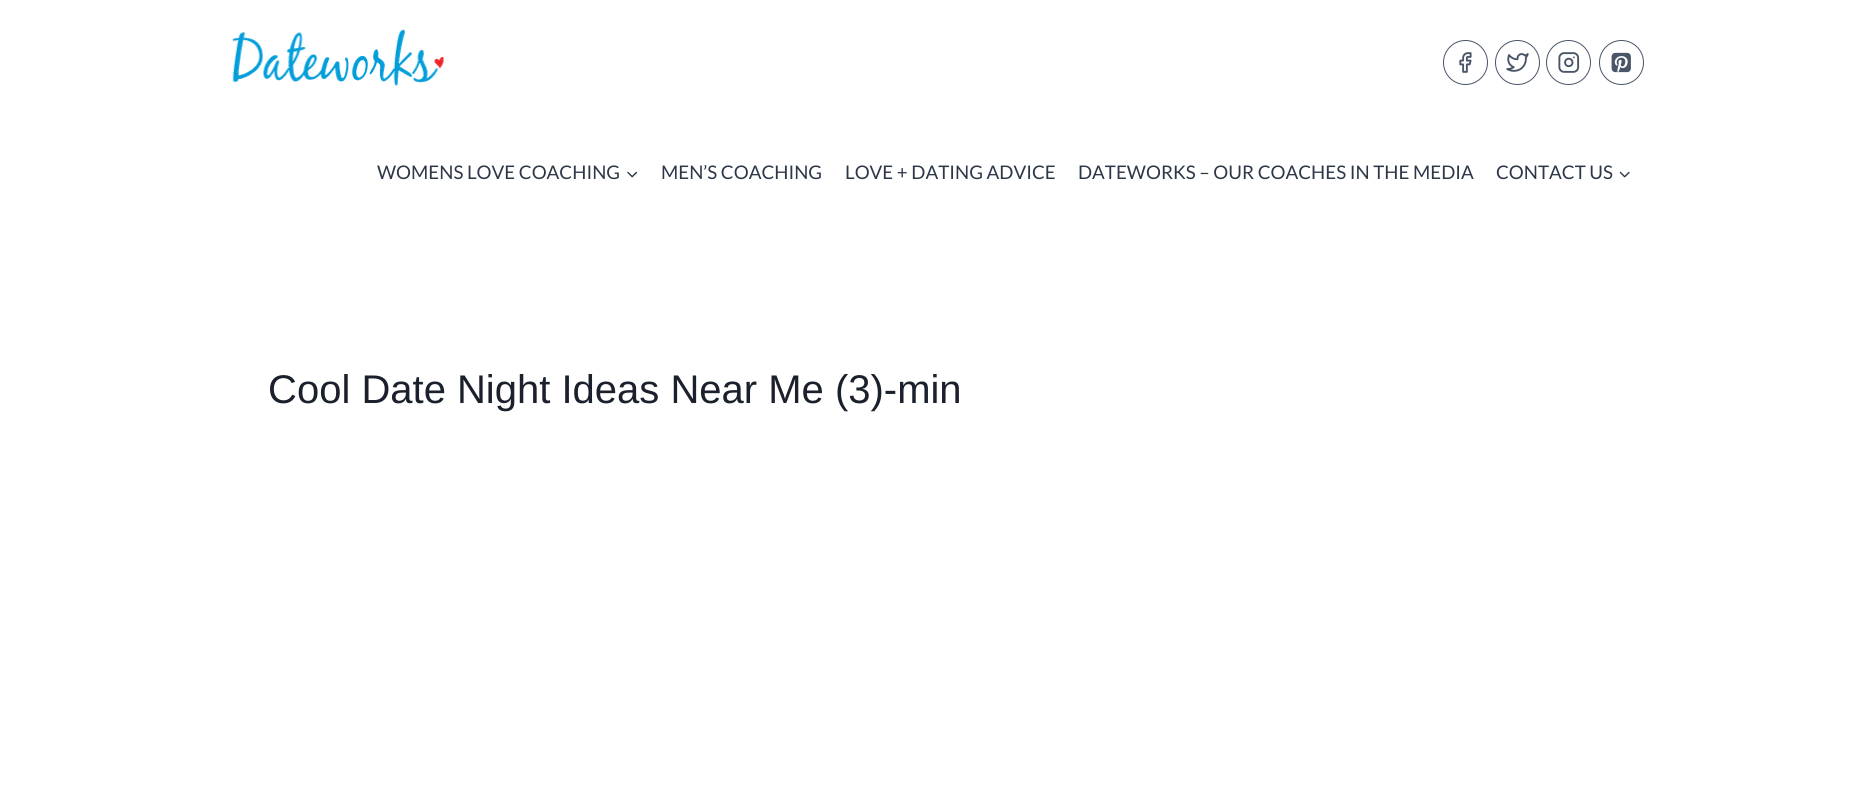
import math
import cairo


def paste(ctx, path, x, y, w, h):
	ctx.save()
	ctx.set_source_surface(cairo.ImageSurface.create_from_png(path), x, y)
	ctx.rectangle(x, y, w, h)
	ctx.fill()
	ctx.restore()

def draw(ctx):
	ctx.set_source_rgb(1, 1, 1)
	ctx.paint()
	paste(ctx, 'media/1.png', 232, 29, 212, 57)
	ctx.arc(1465.5, 62.5, 22, 0, 2 * math.pi)
	ctx.set_source_rgb(0.29, 0.333, 0.408)
	ctx.set_line_width(1)
	ctx.stroke()
	paste(ctx, 'media/2.png', 1459, 52, 13, 21)
	ctx.arc(1517.5, 62.5, 22, 0, 2 * math.pi)
	ctx.stroke()
	paste(ctx, 'media/3.png', 1506, 53, 23, 19)
	ctx.arc(1568.5, 62.5, 22, 0, 2 * math.pi)
	ctx.stroke()
	paste(ctx, 'media/4.png', 1558, 52, 22, 21)
	ctx.arc(1621.5, 62.5, 22, 0, 2 * math.pi)
	ctx.stroke()
	paste(ctx, 'media/5.png', 1611, 52, 20, 21)
	ctx.select_font_face('Lato')
	ctx.set_font_size(18.75)
	ctx.set_source_rgb(0.176, 0.216, 0.282)
	ctx.move_to(377, 179)
	ctx.show_text('WOMENS LOVE COACHING')
	paste(ctx, 'media/6.png', 627, 171, 11, 7)
	for x, y, s in [
		(661, 179, 'MEN’S COACHING'),
		(845, 179, 'LOVE + DATING ADVICE'),
		(1078, 179, 'DATEWORKS – OUR COACHES IN THE MEDIA'),
		(1496, 179, 'CONTACT US'),
	]:
		ctx.move_to(x, y)
		ctx.show_text(s)
	paste(ctx, 'media/7.png', 1619, 171, 11, 7)
	ctx.select_font_face('Liberation Sans')
	ctx.set_font_size(40)
	ctx.set_source_rgb(0.102, 0.125, 0.173)
	ctx.move_to(268, 403)
	ctx.show_text('Cool Date Night Ideas Near Me (3)-min')


surface = cairo.ImageSurface(cairo.FORMAT_RGB24, 1871, 802)
ctx = cairo.Context(surface)
options = cairo.FontOptions()
options.set_hint_metrics(cairo.HINT_METRICS_OFF)
options.set_hint_style(cairo.HINT_STYLE_NONE)
ctx.set_font_options(options)
ctx.set_miter_limit(4)
draw(ctx)
surface.write_to_png('image.png')
